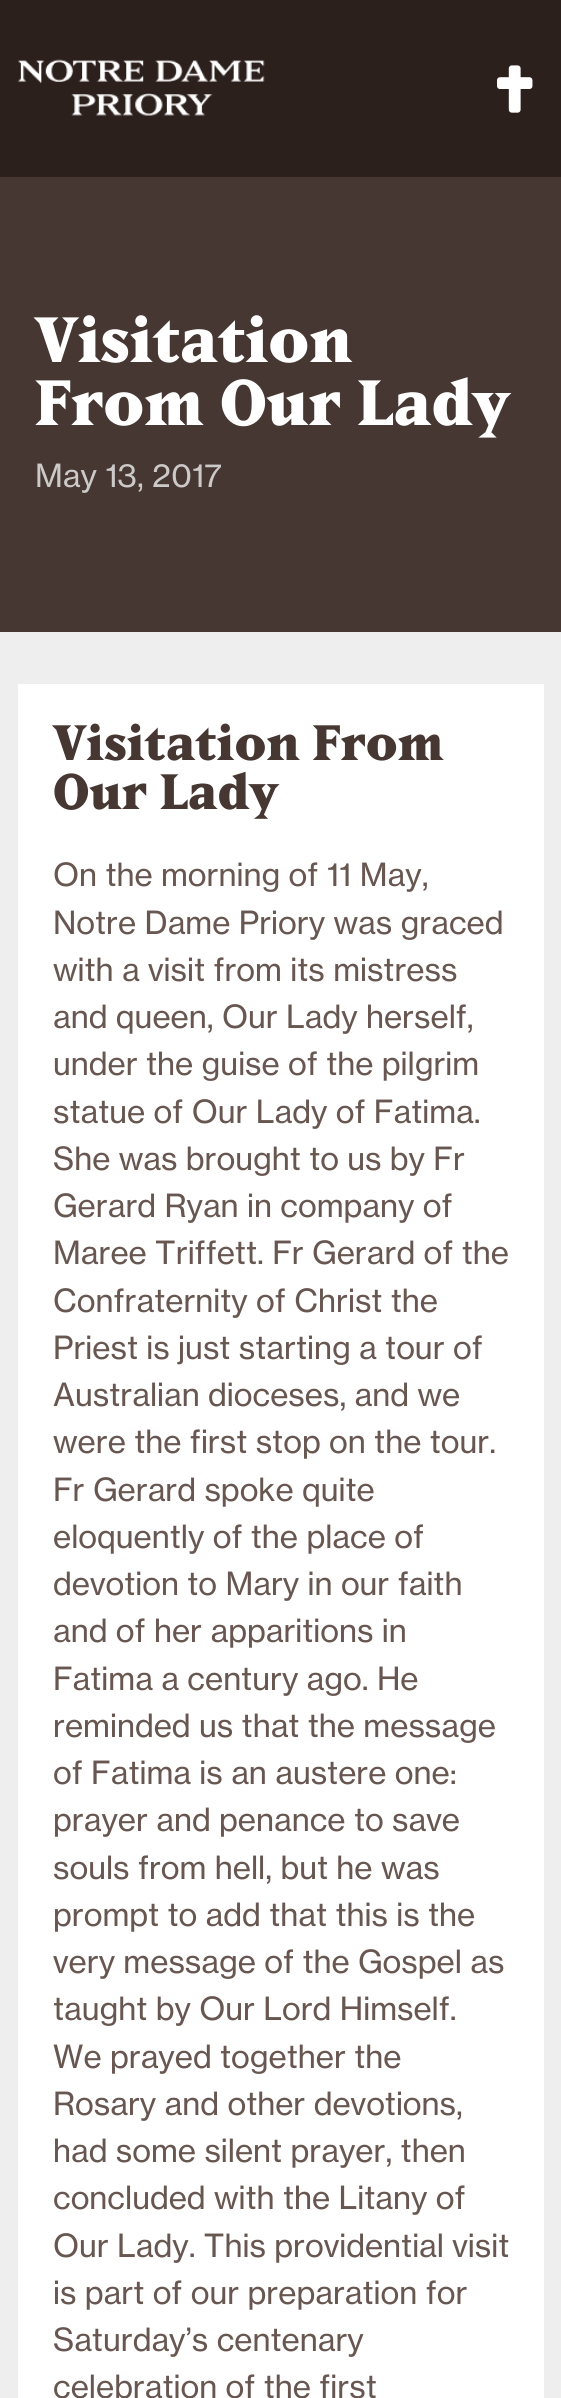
import math
import cairo


def paste(ctx, path, x, y, w, h):
	ctx.save()
	ctx.set_source_surface(cairo.ImageSurface.create_from_png(path), x, y)
	ctx.rectangle(x, y, w, h)
	ctx.fill()
	ctx.restore()

def draw(ctx):
	ctx.set_source_rgb(0.933, 0.933, 0.933)
	ctx.paint()
	ctx.set_source_rgb(0.173, 0.125, 0.11)
	ctx.rectangle(0, 0, 561, 177)
	ctx.fill()
	paste(ctx, 'media/1.png', 17, 59, 248, 57)
	paste(ctx, 'media/2.png', 497, 65, 36, 48)
	ctx.set_source_rgb(0.275, 0.216, 0.196)
	ctx.rectangle(0, 177, 561, 455)
	ctx.fill()
	ctx.select_font_face('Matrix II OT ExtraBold')
	ctx.set_font_size(63)
	ctx.set_source_rgb(1, 1, 1)
	ctx.move_to(35, 362)
	ctx.show_text('Visitation')
	ctx.move_to(35, 425)
	ctx.show_text('From Our Lady')
	ctx.select_font_face('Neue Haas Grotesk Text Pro')
	ctx.set_font_size(31.5)
	ctx.set_source_rgb(0.8, 0.788, 0.788)
	ctx.move_to(35, 487)
	ctx.show_text('May 13, 2017')
	ctx.set_source_rgb(1, 1, 1)
	ctx.rectangle(18, 684, 526, 1714)
	ctx.fill()
	ctx.select_font_face('Matrix II OT ExtraBold')
	ctx.set_font_size(49)
	ctx.set_source_rgb(0.275, 0.216, 0.196)
	ctx.move_to(53, 760)
	ctx.show_text('Visitation From')
	ctx.move_to(53, 809)
	ctx.show_text('Our Lady')
	ctx.select_font_face('Neue Haas Grotesk Text Pro')
	ctx.set_font_size(31.5)
	ctx.set_source_rgb(0.408, 0.341, 0.318)
	for x, y, s in [
		(53, 886, 'On the morning of 11 May,'),
		(53, 934, 'Notre Dame Priory was graced'),
		(53, 981, 'with a visit from its mistress'),
		(53, 1028, 'and queen, Our Lady herself,'),
		(53, 1075, 'under the guise of the pilgrim'),
		(53, 1123, 'statue of Our Lady of Fatima.'),
		(53, 1170, 'She was brought to us by Fr'),
		(53, 1217, 'Gerard Ryan in company of'),
		(53, 1264, 'Maree Triffett. Fr Gerard of the'),
		(53, 1312, 'Confraternity of Christ the'),
		(53, 1359, 'Priest is just starting a tour of'),
		(53, 1406, 'Australian dioceses, and we'),
		(53, 1453, 'were the first stop on the tour.'),
		(53, 1501, 'Fr Gerard spoke quite'),
		(53, 1548, 'eloquently of the place of'),
		(53, 1595, 'devotion to Mary in our faith'),
		(53, 1642, 'and of her apparitions in'),
		(53, 1690, 'Fatima a century ago. He'),
		(53, 1737, 'reminded us that the message'),
		(53, 1784, 'of Fatima is an austere one:'),
		(53, 1831, 'prayer and penance to save'),
		(53, 1879, 'souls from hell, but he was'),
		(53, 1926, 'prompt to add that this is the'),
		(53, 1973, 'very message of the Gospel as'),
		(53, 2020, 'taught by Our Lord Himself.'),
		(53, 2068, 'We prayed together the'),
		(53, 2115, 'Rosary and other devotions,'),
		(53, 2162, 'had some silent prayer, then'),
		(53, 2209, 'concluded with the Litany of'),
		(53, 2257, 'Our Lady. This providential visit'),
		(53, 2304, 'is part of our preparation for'),
		(53, 2351, 'Saturday’s centenary'),
		(53, 2398, 'celebration of the first'),
	]:
		ctx.move_to(x, y)
		ctx.show_text(s)


surface = cairo.ImageSurface(cairo.FORMAT_RGB24, 561, 2398)
ctx = cairo.Context(surface)
options = cairo.FontOptions()
options.set_hint_metrics(cairo.HINT_METRICS_OFF)
options.set_hint_style(cairo.HINT_STYLE_NONE)
ctx.set_font_options(options)
ctx.set_miter_limit(4)
draw(ctx)
surface.write_to_png('image.png')
